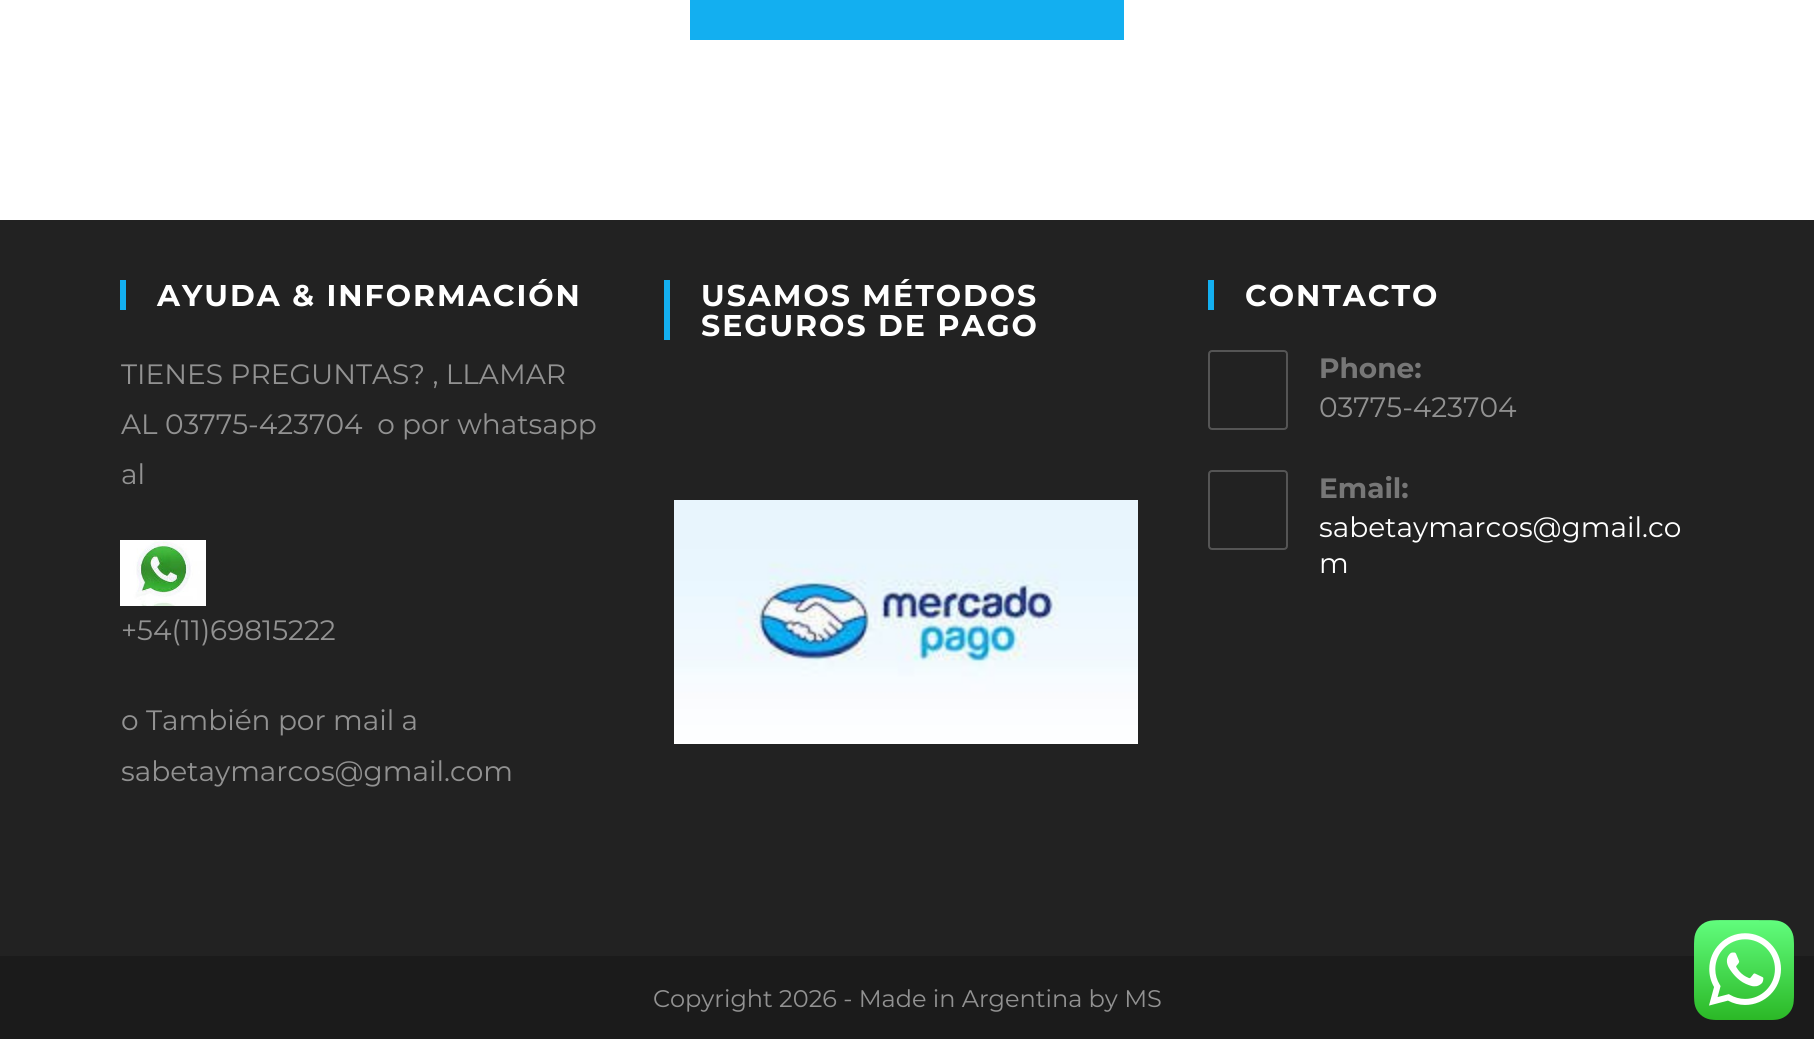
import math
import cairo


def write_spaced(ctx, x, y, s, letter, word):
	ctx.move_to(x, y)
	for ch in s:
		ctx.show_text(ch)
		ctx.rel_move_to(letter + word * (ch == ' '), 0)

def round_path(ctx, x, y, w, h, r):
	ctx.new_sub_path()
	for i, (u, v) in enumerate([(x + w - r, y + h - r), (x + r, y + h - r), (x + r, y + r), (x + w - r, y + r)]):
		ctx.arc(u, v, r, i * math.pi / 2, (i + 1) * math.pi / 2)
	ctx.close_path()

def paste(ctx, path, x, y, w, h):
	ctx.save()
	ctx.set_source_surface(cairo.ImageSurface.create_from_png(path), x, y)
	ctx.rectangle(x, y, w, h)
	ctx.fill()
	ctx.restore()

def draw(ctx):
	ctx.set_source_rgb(1, 1, 1)
	ctx.paint()
	ctx.set_source_rgb(0.075, 0.686, 0.941)
	ctx.rectangle(690, 0, 434, 40)
	ctx.fill()
	ctx.set_source_rgb(0.133, 0.133, 0.133)
	ctx.rectangle(0, 220, 1814, 736)
	ctx.fill()
	ctx.set_source_rgb(0.075, 0.686, 0.941)
	ctx.rectangle(120, 280, 6, 30)
	ctx.fill()
	ctx.select_font_face('Montserrat', cairo.FONT_SLANT_NORMAL, cairo.FONT_WEIGHT_BOLD)
	ctx.set_font_size(30)
	ctx.set_source_rgb(1, 1, 1)
	write_spaced(ctx, 157, 306, 'AYUDA & INFORMACIÓN', 2, 0)
	ctx.select_font_face('Montserrat')
	ctx.set_font_size(28)
	ctx.set_source_rgb(0.573, 0.573, 0.573)
	for x, y, s in [
		(121, 384, 'TIENES PREGUNTAS? , LLAMAR'),
		(121, 434, 'AL 03775-423704  o por whatsapp'),
		(121, 484, 'al'),
	]:
		ctx.move_to(x, y)
		ctx.show_text(s)
	paste(ctx, 'media/1.png', 120, 540, 86, 66)
	for x, y, s in [
		(121, 640, '+54(11)69815222'),
		(121, 730, 'o También por mail a'),
		(121, 781, 'sabetaymarcos@gmail.com'),
	]:
		ctx.move_to(x, y)
		ctx.show_text(s)
	ctx.set_source_rgb(0.075, 0.686, 0.941)
	ctx.rectangle(664, 280, 6, 60)
	ctx.fill()
	ctx.select_font_face('Montserrat', cairo.FONT_SLANT_NORMAL, cairo.FONT_WEIGHT_BOLD)
	ctx.set_font_size(30)
	ctx.set_source_rgb(1, 1, 1)
	write_spaced(ctx, 701, 306, 'USAMOS MÉTODOS', 2, 0)
	write_spaced(ctx, 701, 336, 'SEGUROS DE PAGO', 2, 0)
	paste(ctx, 'media/2.png', 674, 500, 464, 244)
	ctx.set_source_rgb(0.075, 0.686, 0.941)
	ctx.rectangle(1208, 280, 6, 30)
	ctx.fill()
	ctx.set_source_rgb(1, 1, 1)
	write_spaced(ctx, 1245, 306, 'CONTACTO', 2, 0)
	round_path(ctx, 1209, 351, 78, 78, 3)
	ctx.set_source_rgb(0.333, 0.333, 0.333)
	ctx.stroke()
	ctx.set_font_size(28)
	ctx.set_source_rgb(0.467, 0.467, 0.467)
	ctx.move_to(1319, 378)
	ctx.show_text('Phone:')
	ctx.select_font_face('Montserrat')
	ctx.set_source_rgb(0.573, 0.573, 0.573)
	ctx.move_to(1319, 417)
	ctx.show_text('03775-423704')
	round_path(ctx, 1209, 471, 78, 78, 3)
	ctx.set_source_rgb(0.333, 0.333, 0.333)
	ctx.stroke()
	ctx.select_font_face('Montserrat', cairo.FONT_SLANT_NORMAL, cairo.FONT_WEIGHT_BOLD)
	ctx.set_source_rgb(0.467, 0.467, 0.467)
	ctx.move_to(1319, 498)
	ctx.show_text('Email:')
	ctx.select_font_face('Montserrat')
	ctx.set_source_rgb(1, 1, 1)
	ctx.move_to(1319, 537)
	ctx.show_text('sabetaymarcos@gmail.co')
	ctx.move_to(1319, 573)
	ctx.show_text('m')
	ctx.set_source_rgb(0.106, 0.106, 0.106)
	ctx.rectangle(0, 956, 1814, 83)
	ctx.fill()
	ctx.set_font_size(24)
	ctx.set_source_rgb(0.573, 0.573, 0.573)
	ctx.move_to(653, 1007)
	ctx.show_text('Copyright 2026 - Made in Argentina by MS')
	paste(ctx, 'media/3.png', 1694, 920, 100, 100)


surface = cairo.ImageSurface(cairo.FORMAT_RGB24, 1814, 1039)
ctx = cairo.Context(surface)
options = cairo.FontOptions()
options.set_hint_metrics(cairo.HINT_METRICS_OFF)
options.set_hint_style(cairo.HINT_STYLE_NONE)
ctx.set_font_options(options)
ctx.set_miter_limit(4)
draw(ctx)
surface.write_to_png('image.png')
